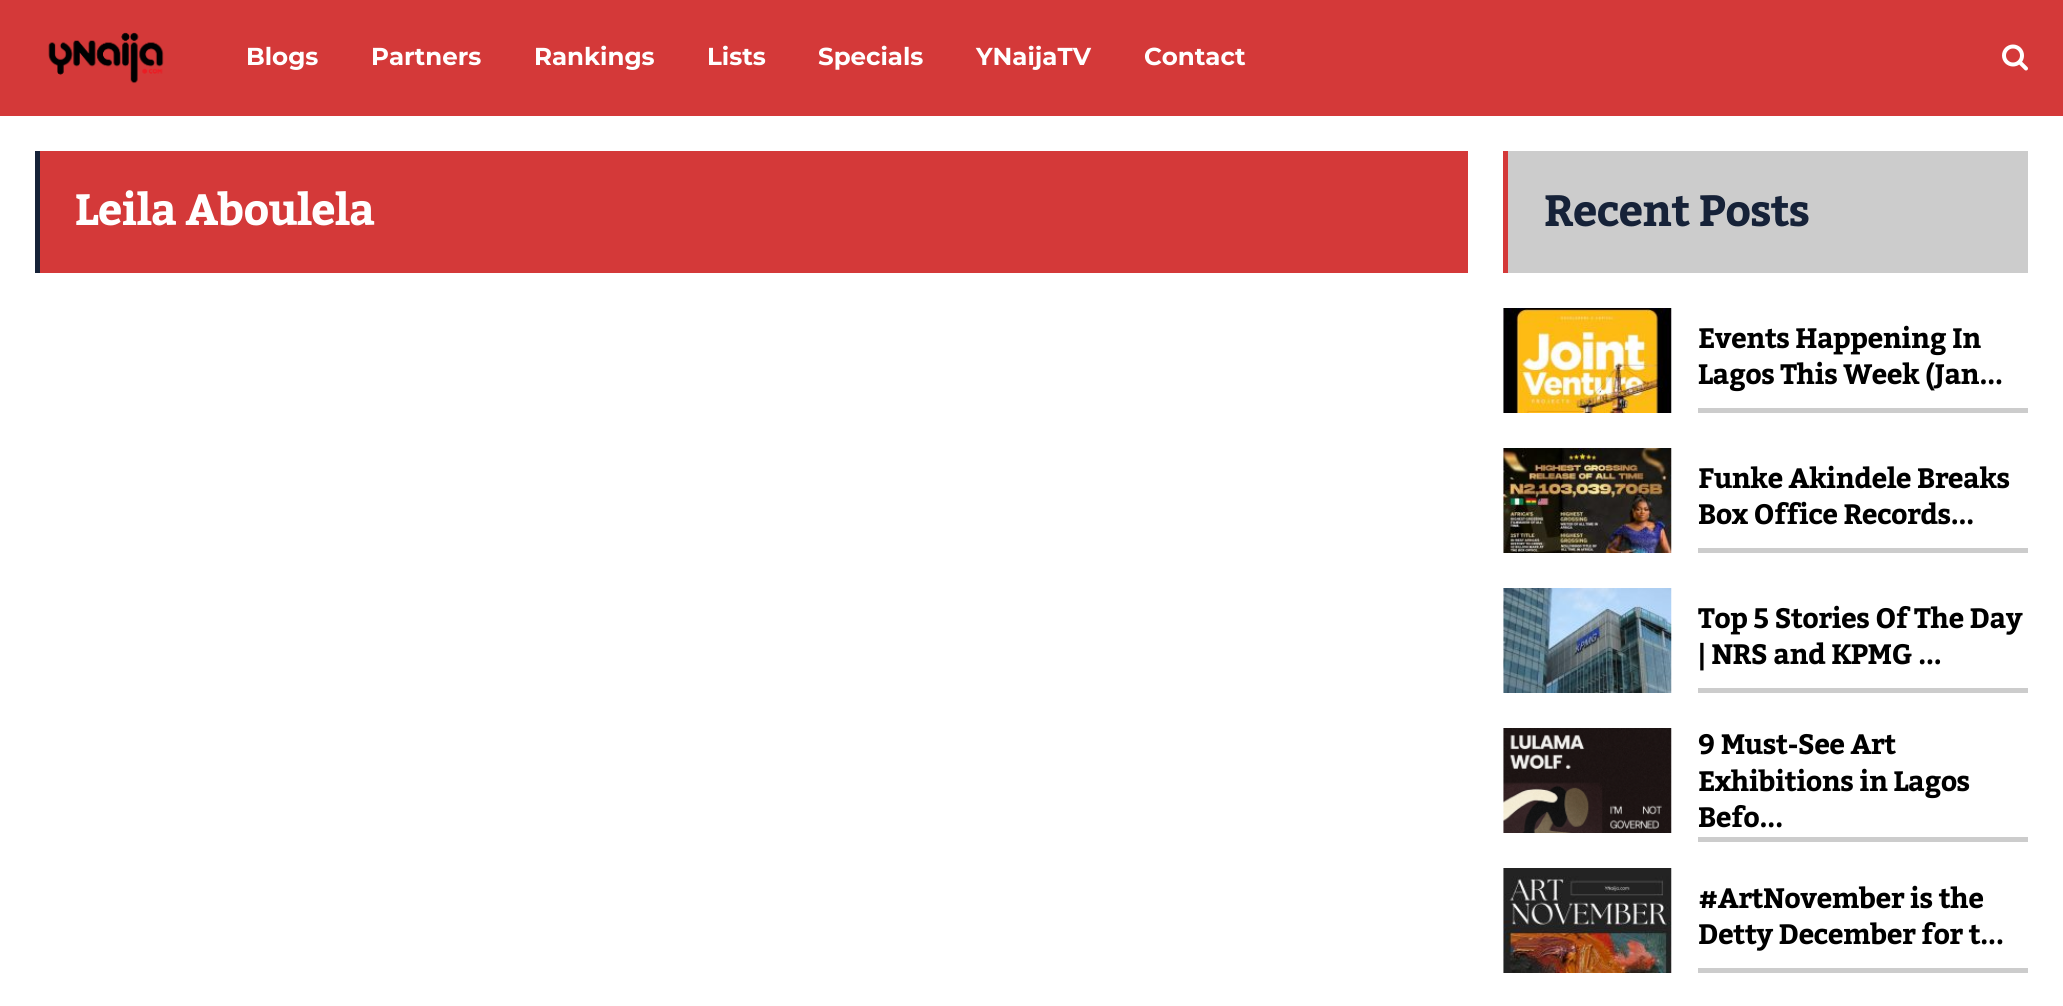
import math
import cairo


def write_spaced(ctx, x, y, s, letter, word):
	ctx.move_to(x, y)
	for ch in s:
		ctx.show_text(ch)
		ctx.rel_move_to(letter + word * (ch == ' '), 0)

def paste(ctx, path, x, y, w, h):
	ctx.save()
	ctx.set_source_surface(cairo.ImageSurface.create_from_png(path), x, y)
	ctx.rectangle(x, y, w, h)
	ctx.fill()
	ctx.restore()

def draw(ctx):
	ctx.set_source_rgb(1, 1, 1)
	ctx.paint()
	ctx.set_source_rgb(0.831, 0.224, 0.224)
	ctx.rectangle(0, 0, 2063, 116)
	ctx.fill()
	paste(ctx, 'media/1.png', 48, 32, 116, 52)
	ctx.select_font_face('Montserrat', cairo.FONT_SLANT_NORMAL, cairo.FONT_WEIGHT_BOLD)
	ctx.set_font_size(24.5)
	ctx.set_source_rgb(1, 1, 1)
	for x, y, s in [
		(246, 65, 'Blogs'),
		(371, 65, 'Partners'),
		(534, 65, 'Rankings'),
		(707, 65, 'Lists'),
		(818, 65, 'Specials'),
		(976, 65, 'YNaijaTV'),
		(1144, 65, 'Contact'),
	]:
		ctx.move_to(x, y)
		ctx.show_text(s)
	paste(ctx, 'media/2.png', 2002, 44, 26, 27)
	ctx.set_source_rgb(0.831, 0.224, 0.224)
	ctx.rectangle(40, 151, 1428, 122)
	ctx.fill()
	ctx.set_source_rgb(0.086, 0.133, 0.22)
	ctx.rectangle(35, 151, 5, 122)
	ctx.fill()
	ctx.select_font_face('Kadwa', cairo.FONT_SLANT_NORMAL, cairo.FONT_WEIGHT_BOLD)
	ctx.set_font_size(43.75)
	ctx.set_source_rgb(1, 1, 1)
	write_spaced(ctx, 75, 225, 'Leila Aboulela', -0.9, 0)
	ctx.set_source_rgb(0.8, 0.8, 0.8)
	ctx.rectangle(1508, 151, 520, 122)
	ctx.fill()
	ctx.set_source_rgb(0.831, 0.224, 0.224)
	ctx.rectangle(1503, 151, 5, 122)
	ctx.fill()
	ctx.set_source_rgb(0.086, 0.133, 0.22)
	write_spaced(ctx, 1544, 226, 'Recent Posts', -0.9, 0)
	paste(ctx, 'media/3.png', 1503, 308, 169, 105)
	ctx.set_source_rgb(0.8, 0.8, 0.8)
	ctx.rectangle(1698, 408, 330, 5)
	ctx.fill()
	ctx.set_font_size(28)
	ctx.set_source_rgb(0, 0, 0)
	write_spaced(ctx, 1698, 348, 'Events Happening In', -0.6, 0)
	write_spaced(ctx, 1698, 384, 'Lagos This Week (Jan...', -0.6, 0)
	paste(ctx, 'media/4.png', 1503, 448, 169, 105)
	ctx.set_source_rgb(0.8, 0.8, 0.8)
	ctx.rectangle(1698, 548, 330, 5)
	ctx.fill()
	ctx.set_source_rgb(0, 0, 0)
	write_spaced(ctx, 1698, 488, 'Funke Akindele Breaks', -0.6, 0)
	write_spaced(ctx, 1698, 524, 'Box Office Records...', -0.6, 0)
	paste(ctx, 'media/5.png', 1503, 588, 169, 105)
	ctx.set_source_rgb(0.8, 0.8, 0.8)
	ctx.rectangle(1698, 688, 330, 5)
	ctx.fill()
	ctx.set_source_rgb(0, 0, 0)
	write_spaced(ctx, 1698, 628, 'Top 5 Stories Of The Day', -0.6, 0)
	write_spaced(ctx, 1698, 664, '| NRS and KPMG ...', -0.6, 0)
	paste(ctx, 'media/6.png', 1503, 728, 169, 105)
	ctx.set_source_rgb(0.8, 0.8, 0.8)
	ctx.rectangle(1698, 837, 330, 5)
	ctx.fill()
	ctx.set_source_rgb(0, 0, 0)
	for x, y, s in [
		(1698, 754, '9 Must-See Art'),
		(1698, 791, 'Exhibitions in Lagos'),
		(1698, 827, 'Befo...'),
	]:
		write_spaced(ctx, x, y, s, -0.6, 0)
	paste(ctx, 'media/7.png', 1503, 868, 169, 105)
	ctx.set_source_rgb(0.8, 0.8, 0.8)
	ctx.rectangle(1698, 968, 330, 5)
	ctx.fill()
	ctx.set_source_rgb(0, 0, 0)
	write_spaced(ctx, 1698, 908, '#ArtNovember is the', -0.6, 0)
	write_spaced(ctx, 1698, 944, 'Detty December for t...', -0.6, 0)


surface = cairo.ImageSurface(cairo.FORMAT_RGB24, 2063, 1006)
ctx = cairo.Context(surface)
options = cairo.FontOptions()
options.set_hint_metrics(cairo.HINT_METRICS_OFF)
options.set_hint_style(cairo.HINT_STYLE_NONE)
ctx.set_font_options(options)
ctx.set_miter_limit(4)
draw(ctx)
surface.write_to_png('image.png')
